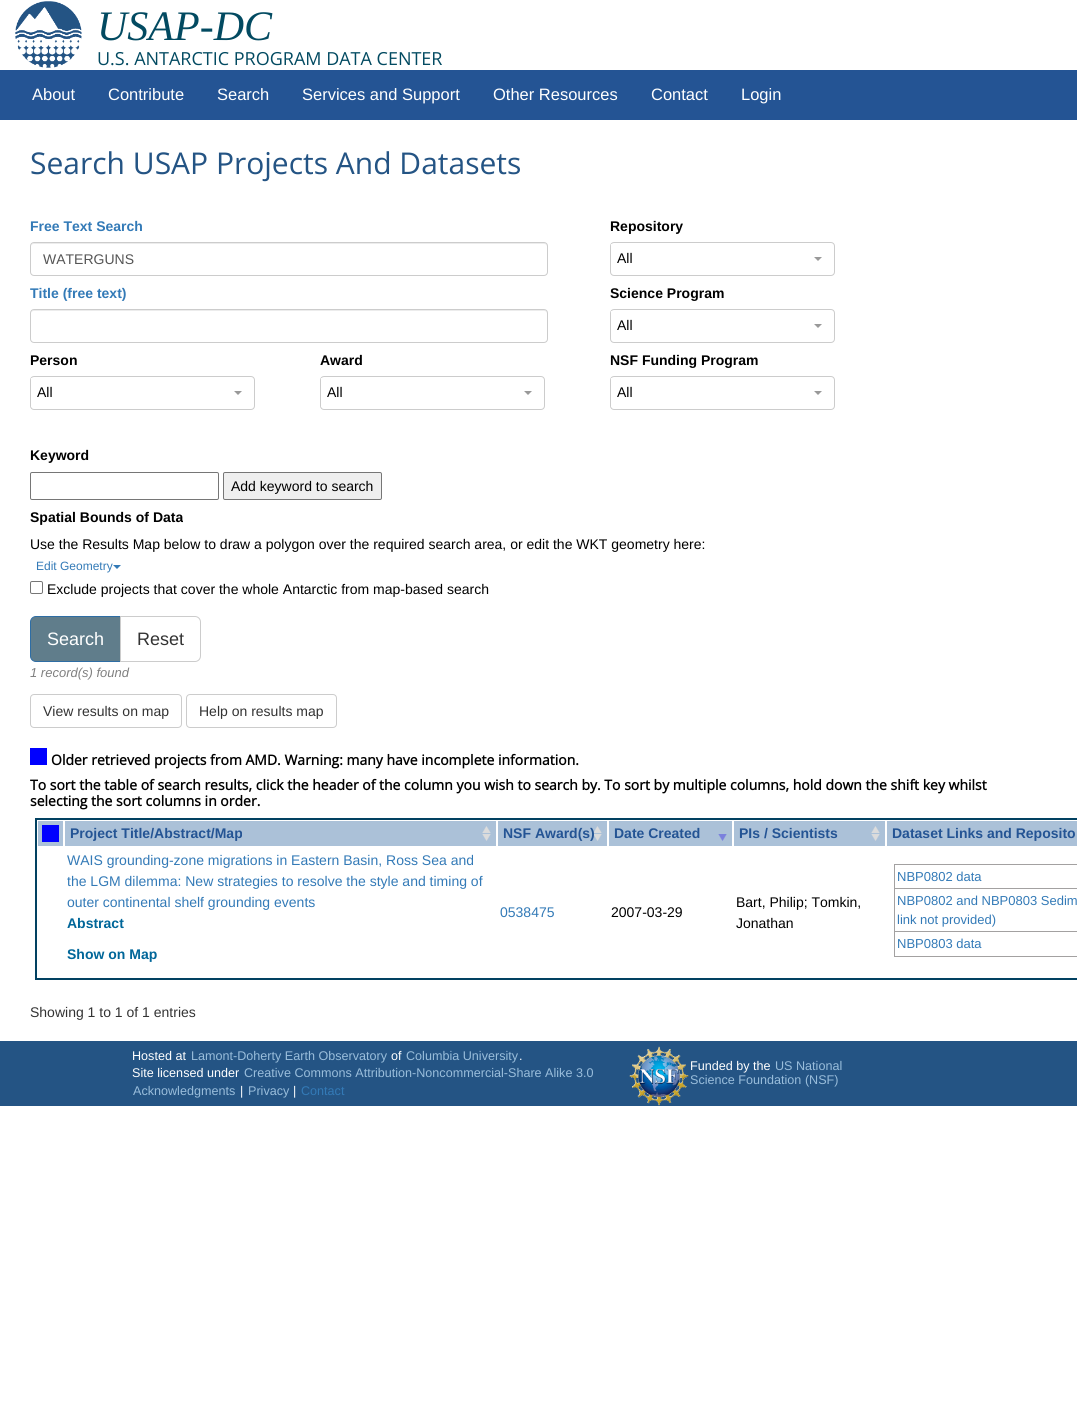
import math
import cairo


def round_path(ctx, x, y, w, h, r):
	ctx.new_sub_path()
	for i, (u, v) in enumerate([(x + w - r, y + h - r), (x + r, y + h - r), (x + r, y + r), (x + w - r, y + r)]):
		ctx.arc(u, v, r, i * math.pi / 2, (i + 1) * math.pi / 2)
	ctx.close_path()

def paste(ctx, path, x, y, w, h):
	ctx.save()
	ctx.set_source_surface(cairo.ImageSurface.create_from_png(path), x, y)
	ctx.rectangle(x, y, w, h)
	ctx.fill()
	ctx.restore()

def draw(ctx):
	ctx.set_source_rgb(1, 1, 1)
	ctx.paint()
	paste(ctx, 'media/1.png', 15, 1, 67, 67)
	ctx.select_font_face('Liberation Serif', cairo.FONT_SLANT_ITALIC)
	ctx.set_font_size(42)
	ctx.set_source_rgb(0.008, 0.29, 0.38)
	ctx.move_to(97, 40)
	ctx.show_text('USAP-DC')
	ctx.select_font_face('Open Sans')
	ctx.set_font_size(18)
	ctx.move_to(97, 65)
	ctx.show_text('U.S. ANTARCTIC PROGRAM DATA CENTER')
	ctx.set_source_rgb(0.141, 0.329, 0.58)
	ctx.rectangle(0, 70, 1077, 50)
	ctx.fill()
	ctx.select_font_face('Liberation Sans')
	ctx.set_font_size(16.5)
	ctx.set_source_rgb(1, 1, 1)
	for x, y, s in [
		(32, 100, 'About'),
		(108, 100, 'Contribute'),
		(217, 100, 'Search'),
		(302, 100, 'Services and Support'),
		(493, 100, 'Other Resources'),
		(651, 100, 'Contact'),
		(741, 100, 'Login'),
	]:
		ctx.move_to(x, y)
		ctx.show_text(s)
	ctx.select_font_face('Open Sans')
	ctx.set_font_size(30)
	ctx.set_source_rgb(0.141, 0.329, 0.518)
	ctx.move_to(30, 174)
	ctx.show_text('Search USAP Projects And Datasets')
	ctx.select_font_face('Liberation Sans', cairo.FONT_SLANT_NORMAL, cairo.FONT_WEIGHT_BOLD)
	ctx.set_font_size(14)
	ctx.set_source_rgb(0.2, 0.478, 0.718)
	ctx.move_to(30, 231)
	ctx.show_text('Free Text Search')
	ctx.set_source_rgb(0.925, 0.925, 0.925)
	ctx.new_path()
	ctx.move_to(34, 244)
	ctx.line_to(544, 244)
	ctx.curve_to(546, 244, 547, 245, 547, 247)
	ctx.line_to(547, 245)
	ctx.line_to(545, 243)
	ctx.line_to(34, 243)
	ctx.curve_to(32, 243, 31, 245, 31, 247)
	ctx.curve_to(31, 245, 32, 244, 34, 244)
	ctx.close_path()
	ctx.fill()
	round_path(ctx, 30.5, 242.5, 517, 33, 3.5)
	ctx.set_source_rgb(0.8, 0.8, 0.8)
	ctx.set_line_width(1)
	ctx.stroke()
	ctx.select_font_face('Liberation Sans')
	ctx.set_source_rgb(0.333, 0.333, 0.333)
	ctx.move_to(43, 264)
	ctx.show_text('WATERGUNS')
	ctx.select_font_face('Liberation Sans', cairo.FONT_SLANT_NORMAL, cairo.FONT_WEIGHT_BOLD)
	ctx.set_source_rgb(0, 0, 0)
	ctx.move_to(610, 231)
	ctx.show_text('Repository')
	round_path(ctx, 610.5, 242.5, 224, 33, 3.5)
	ctx.set_source_rgb(0.8, 0.8, 0.8)
	ctx.stroke()
	ctx.set_source_rgb(0.6, 0.6, 0.6)
	ctx.new_path()
	ctx.move_to(814, 257)
	ctx.line_to(822, 257)
	ctx.line_to(818, 261)
	ctx.close_path()
	ctx.fill()
	ctx.set_source_rgb(1, 1, 1)
	ctx.rectangle(611, 244, 1, 2)
	ctx.fill()
	ctx.select_font_face('Liberation Sans')
	ctx.set_source_rgb(0, 0, 0)
	ctx.move_to(617, 263)
	ctx.show_text('All')
	ctx.select_font_face('Liberation Sans', cairo.FONT_SLANT_NORMAL, cairo.FONT_WEIGHT_BOLD)
	ctx.set_source_rgb(0.2, 0.478, 0.718)
	ctx.move_to(30, 298)
	ctx.show_text('Title (free text)')
	ctx.set_source_rgb(0.925, 0.925, 0.925)
	ctx.new_path()
	ctx.move_to(34, 311)
	ctx.line_to(544, 311)
	ctx.curve_to(546, 311, 547, 312, 547, 314)
	ctx.line_to(547, 312)
	ctx.line_to(545, 310)
	ctx.line_to(34, 310)
	ctx.curve_to(32, 310, 31, 312, 31, 314)
	ctx.curve_to(31, 312, 32, 311, 34, 311)
	ctx.close_path()
	ctx.fill()
	round_path(ctx, 30.5, 309.5, 517, 33, 3.5)
	ctx.set_source_rgb(0.8, 0.8, 0.8)
	ctx.stroke()
	ctx.set_source_rgb(0, 0, 0)
	ctx.move_to(610, 298)
	ctx.show_text('Science Program')
	round_path(ctx, 610.5, 309.5, 224, 33, 3.5)
	ctx.set_source_rgb(0.8, 0.8, 0.8)
	ctx.stroke()
	ctx.set_source_rgb(0.6, 0.6, 0.6)
	ctx.new_path()
	ctx.move_to(814, 324)
	ctx.line_to(822, 324)
	ctx.line_to(818, 328)
	ctx.close_path()
	ctx.fill()
	ctx.set_source_rgb(1, 1, 1)
	ctx.rectangle(611, 311, 1, 2)
	ctx.fill()
	ctx.select_font_face('Liberation Sans')
	ctx.set_source_rgb(0, 0, 0)
	ctx.move_to(617, 330)
	ctx.show_text('All')
	ctx.select_font_face('Liberation Sans', cairo.FONT_SLANT_NORMAL, cairo.FONT_WEIGHT_BOLD)
	ctx.move_to(30, 365)
	ctx.show_text('Person')
	round_path(ctx, 30.5, 376.5, 224, 33, 3.5)
	ctx.set_source_rgb(0.8, 0.8, 0.8)
	ctx.stroke()
	ctx.set_source_rgb(0.6, 0.6, 0.6)
	ctx.new_path()
	ctx.move_to(234, 391)
	ctx.line_to(242, 391)
	ctx.line_to(238, 395)
	ctx.close_path()
	ctx.fill()
	ctx.set_source_rgb(1, 1, 1)
	ctx.rectangle(31, 378, 1, 29)
	ctx.fill()
	ctx.select_font_face('Liberation Sans')
	ctx.set_source_rgb(0, 0, 0)
	ctx.move_to(37, 397)
	ctx.show_text('All')
	ctx.select_font_face('Liberation Sans', cairo.FONT_SLANT_NORMAL, cairo.FONT_WEIGHT_BOLD)
	ctx.move_to(320, 365)
	ctx.show_text('Award')
	round_path(ctx, 320.5, 376.5, 224, 33, 3.5)
	ctx.set_source_rgb(0.8, 0.8, 0.8)
	ctx.stroke()
	ctx.set_source_rgb(0.6, 0.6, 0.6)
	ctx.new_path()
	ctx.move_to(524, 391)
	ctx.line_to(532, 391)
	ctx.line_to(528, 395)
	ctx.close_path()
	ctx.fill()
	ctx.set_source_rgb(1, 1, 1)
	ctx.rectangle(321, 378, 1, 29)
	ctx.fill()
	ctx.select_font_face('Liberation Sans')
	ctx.set_source_rgb(0, 0, 0)
	ctx.move_to(327, 397)
	ctx.show_text('All')
	ctx.select_font_face('Liberation Sans', cairo.FONT_SLANT_NORMAL, cairo.FONT_WEIGHT_BOLD)
	ctx.move_to(610, 365)
	ctx.show_text('NSF Funding Program')
	round_path(ctx, 610.5, 376.5, 224, 33, 3.5)
	ctx.set_source_rgb(0.8, 0.8, 0.8)
	ctx.stroke()
	ctx.set_source_rgb(0.6, 0.6, 0.6)
	ctx.new_path()
	ctx.move_to(814, 391)
	ctx.line_to(822, 391)
	ctx.line_to(818, 395)
	ctx.close_path()
	ctx.fill()
	ctx.set_source_rgb(1, 1, 1)
	ctx.rectangle(611, 378, 1, 29)
	ctx.fill()
	ctx.select_font_face('Liberation Sans')
	ctx.set_source_rgb(0, 0, 0)
	ctx.move_to(617, 397)
	ctx.show_text('All')
	ctx.select_font_face('Liberation Sans', cairo.FONT_SLANT_NORMAL, cairo.FONT_WEIGHT_BOLD)
	ctx.move_to(30, 460)
	ctx.show_text('Keyword')
	round_path(ctx, 30.5, 472.5, 188, 27, 1.5)
	ctx.set_source_rgb(0.463, 0.463, 0.463)
	ctx.stroke()
	ctx.set_source_rgb(0.937, 0.937, 0.937)
	round_path(ctx, 223.5, 472.5, 158, 27, 1.5)
	ctx.fill_preserve()
	ctx.set_source_rgb(0.463, 0.463, 0.463)
	ctx.stroke()
	ctx.select_font_face('Liberation Sans')
	ctx.set_source_rgb(0, 0, 0)
	ctx.move_to(231, 491)
	ctx.show_text('Add keyword to search')
	ctx.select_font_face('Liberation Sans', cairo.FONT_SLANT_NORMAL, cairo.FONT_WEIGHT_BOLD)
	ctx.move_to(30, 522)
	ctx.show_text('Spatial Bounds of Data')
	ctx.select_font_face('Liberation Sans')
	ctx.move_to(30, 549)
	ctx.show_text('Use the Results Map below to draw a polygon over the required search area, or edit the WKT geometry here:')
	ctx.set_font_size(12)
	ctx.set_source_rgb(0.2, 0.478, 0.718)
	ctx.move_to(36, 570)
	ctx.show_text('Edit Geometry')
	ctx.new_path()
	ctx.move_to(113, 565)
	ctx.line_to(121, 565)
	ctx.line_to(117, 569)
	ctx.close_path()
	ctx.fill()
	round_path(ctx, 30.5, 581.5, 12, 12, 1.5)
	ctx.set_source_rgb(0.463, 0.463, 0.463)
	ctx.stroke()
	ctx.set_font_size(14)
	ctx.set_source_rgb(0, 0, 0)
	ctx.move_to(47, 594)
	ctx.show_text('Exclude projects that cover the whole Antarctic from map-based search')
	ctx.set_source_rgb(0.376, 0.49, 0.545)
	ctx.new_path()
	ctx.move_to(36, 616.5)
	ctx.line_to(120.5, 616.5)
	ctx.line_to(120.5, 661.5)
	ctx.line_to(36, 661.5)
	ctx.curve_to(33, 661.5, 30.5, 659, 30.5, 656)
	ctx.line_to(30.5, 622)
	ctx.curve_to(30.5, 619, 33, 616.5, 36, 616.5)
	ctx.close_path()
	ctx.fill_preserve()
	ctx.set_source_rgb(0.18, 0.427, 0.643)
	ctx.stroke()
	ctx.set_font_size(18)
	ctx.set_source_rgb(1, 1, 1)
	ctx.move_to(47, 645)
	ctx.show_text('Search')
	ctx.new_path()
	ctx.move_to(120.5, 616.5)
	ctx.line_to(195, 616.5)
	ctx.curve_to(198, 616.5, 200.5, 619, 200.5, 622)
	ctx.line_to(200.5, 656)
	ctx.curve_to(200.5, 659, 198, 661.5, 195, 661.5)
	ctx.line_to(120.5, 661.5)
	ctx.close_path()
	ctx.fill_preserve()
	ctx.set_source_rgb(0.8, 0.8, 0.8)
	ctx.stroke()
	ctx.set_source_rgb(0.2, 0.2, 0.2)
	ctx.move_to(137, 645)
	ctx.show_text('Reset')
	ctx.select_font_face('Liberation Sans', cairo.FONT_SLANT_ITALIC)
	ctx.set_font_size(13)
	ctx.set_source_rgb(0.502, 0.502, 0.502)
	ctx.move_to(30, 677)
	ctx.show_text('1 record(s) found')
	round_path(ctx, 30.5, 694.5, 151, 33, 3.5)
	ctx.set_source_rgb(0.8, 0.8, 0.8)
	ctx.stroke()
	ctx.select_font_face('Liberation Sans')
	ctx.set_font_size(14)
	ctx.set_source_rgb(0.2, 0.2, 0.2)
	ctx.move_to(43, 716)
	ctx.show_text('View results on map')
	round_path(ctx, 186.5, 694.5, 150, 33, 3.5)
	ctx.set_source_rgb(0.8, 0.8, 0.8)
	ctx.stroke()
	ctx.set_source_rgb(0.2, 0.2, 0.2)
	ctx.move_to(199, 716)
	ctx.show_text('Help on results map')
	ctx.set_source_rgb(0, 0, 1)
	ctx.rectangle(30, 748, 17, 17)
	ctx.fill()
	ctx.select_font_face('Open Sans', cairo.FONT_SLANT_NORMAL, cairo.FONT_WEIGHT_BOLD)
	ctx.set_source_rgb(0, 0, 0)
	for x, y, s in [
		(51, 765, 'Older retrieved projects from AMD. Warning: many have incomplete information.'),
		(30, 790, 'To sort the table of search results, click the header of the column you wish to search by. To sort by multiple columns, hold down the shift key whilst'),
		(30, 806, 'selecting the sort columns in order.'),
	]:
		ctx.move_to(x, y)
		ctx.show_text(s)
	ctx.rectangle(36, 819, 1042, 160)
	ctx.set_source_rgb(0.008, 0.255, 0.38)
	ctx.set_line_width(2)
	ctx.stroke()
	ctx.set_source_rgb(0.671, 0.757, 0.847)
	ctx.rectangle(38, 821, 25, 25)
	ctx.fill()
	ctx.set_source_rgb(0, 0, 1)
	ctx.rectangle(42, 825, 17, 17)
	ctx.fill()
	ctx.set_source_rgb(0.671, 0.757, 0.847)
	ctx.rectangle(65, 821, 431, 25)
	ctx.fill()
	paste(ctx, 'media/2.png', 482, 826, 9, 15)
	ctx.select_font_face('Liberation Sans', cairo.FONT_SLANT_NORMAL, cairo.FONT_WEIGHT_BOLD)
	ctx.set_source_rgb(0.141, 0.329, 0.58)
	ctx.move_to(70, 838)
	ctx.show_text('Project Title/Abstract/Map')
	ctx.set_source_rgb(0.671, 0.757, 0.847)
	ctx.rectangle(498, 821, 109, 25)
	ctx.fill()
	paste(ctx, 'media/2.png', 593, 826, 9, 15)
	ctx.set_source_rgb(0.141, 0.329, 0.58)
	ctx.move_to(503, 838)
	ctx.show_text('NSF Award(s)')
	ctx.set_source_rgb(0.671, 0.757, 0.847)
	ctx.rectangle(609, 821, 123, 25)
	ctx.fill()
	paste(ctx, 'media/3.png', 718, 834, 9, 7)
	ctx.set_source_rgb(0.141, 0.329, 0.58)
	ctx.move_to(614, 838)
	ctx.show_text('Date Created')
	ctx.set_source_rgb(0.671, 0.757, 0.847)
	ctx.rectangle(734, 821, 151, 25)
	ctx.fill()
	paste(ctx, 'media/2.png', 871, 826, 9, 15)
	ctx.set_source_rgb(0.141, 0.329, 0.58)
	ctx.move_to(739, 838)
	ctx.show_text('PIs / Scientists')
	ctx.set_source_rgb(0.671, 0.757, 0.847)
	ctx.rectangle(887, 821, 190, 25)
	ctx.fill()
	ctx.set_source_rgb(0.141, 0.329, 0.58)
	ctx.move_to(892, 838)
	ctx.show_text('Dataset Links and Reposito')
	ctx.select_font_face('Liberation Sans')
	ctx.set_source_rgb(0.2, 0.478, 0.718)
	for x, y, s in [
		(67, 865, 'WAIS grounding-zone migrations in Eastern Basin, Ross Sea and'),
		(67, 886, 'the LGM dilemma: New strategies to resolve the style and timing of'),
		(67, 907, 'outer continental shelf grounding events'),
	]:
		ctx.move_to(x, y)
		ctx.show_text(s)
	ctx.select_font_face('Liberation Sans', cairo.FONT_SLANT_NORMAL, cairo.FONT_WEIGHT_BOLD)
	ctx.set_source_rgb(0, 0.4, 0.6)
	ctx.move_to(67, 928)
	ctx.show_text('Abstract')
	ctx.move_to(67, 959)
	ctx.show_text('Show on Map')
	ctx.select_font_face('Liberation Sans')
	ctx.set_source_rgb(0.2, 0.478, 0.718)
	ctx.move_to(500, 917)
	ctx.show_text('0538475')
	ctx.set_source_rgb(0, 0, 0)
	for x, y, s in [
		(611, 917, '2007-03-29'),
		(736, 907, 'Bart, Philip; Tomkin,'),
		(736, 928, 'Jonathan'),
	]:
		ctx.move_to(x, y)
		ctx.show_text(s)
	ctx.set_source_rgb(0.639, 0.631, 0.631)
	ctx.rectangle(894, 864, 183, 1)
	ctx.rectangle(894, 888, 183, 1)
	ctx.rectangle(894, 931, 183, 1)
	ctx.rectangle(894, 956, 183, 1)
	ctx.rectangle(894, 931, 1, 26)
	ctx.rectangle(894, 888, 1, 44)
	ctx.rectangle(894, 864, 1, 25)
	ctx.fill()
	ctx.set_font_size(13)
	ctx.set_source_rgb(0.2, 0.478, 0.718)
	for x, y, s in [
		(897, 881, 'NBP0802 data'),
		(897, 905, 'NBP0802 and NBP0803 Sedim'),
		(897, 924, 'link not provided)'),
		(897, 948, 'NBP0803 data'),
	]:
		ctx.move_to(x, y)
		ctx.show_text(s)
	ctx.set_font_size(14)
	ctx.set_source_rgb(0.2, 0.2, 0.2)
	ctx.move_to(30, 1017)
	ctx.show_text('Showing 1 to 1 of 1 entries')
	ctx.set_source_rgb(0.141, 0.329, 0.518)
	ctx.rectangle(0, 1041, 1077, 65)
	ctx.fill()
	ctx.set_font_size(12.6)
	ctx.set_source_rgb(1, 1, 1)
	ctx.move_to(132, 1060)
	ctx.show_text('Hosted at')
	ctx.set_source_rgb(0.6, 0.741, 0.859)
	ctx.move_to(191, 1060)
	ctx.show_text('Lamont-Doherty Earth Observatory')
	ctx.set_source_rgb(1, 1, 1)
	ctx.move_to(391, 1060)
	ctx.show_text('of')
	ctx.set_source_rgb(0.6, 0.741, 0.859)
	ctx.move_to(406, 1060)
	ctx.show_text('Columbia University')
	ctx.set_source_rgb(1, 1, 1)
	ctx.move_to(519, 1060)
	ctx.show_text('.')
	ctx.move_to(132, 1077)
	ctx.show_text('Site licensed under')
	ctx.set_source_rgb(0.6, 0.741, 0.859)
	ctx.move_to(244, 1077)
	ctx.show_text('Creative Commons Attribution-Noncommercial-Share Alike 3.0')
	ctx.move_to(133, 1095)
	ctx.show_text('Acknowledgments')
	ctx.set_source_rgb(1, 1, 1)
	ctx.move_to(240, 1095)
	ctx.show_text('|')
	ctx.set_source_rgb(0.6, 0.741, 0.859)
	ctx.move_to(248, 1095)
	ctx.show_text('Privacy')
	ctx.set_source_rgb(1, 1, 1)
	ctx.move_to(293, 1095)
	ctx.show_text('|')
	ctx.set_source_rgb(0.2, 0.478, 0.718)
	ctx.move_to(301, 1095)
	ctx.show_text('Contact')
	paste(ctx, 'media/4.png', 629, 1046, 60, 60)
	ctx.set_source_rgb(1, 1, 1)
	ctx.move_to(690, 1070)
	ctx.show_text('Funded by the')
	ctx.set_source_rgb(0.6, 0.741, 0.859)
	ctx.move_to(775, 1070)
	ctx.show_text('US National')
	ctx.move_to(690, 1084)
	ctx.show_text('Science Foundation (NSF)')


surface = cairo.ImageSurface(cairo.FORMAT_RGB24, 1077, 1408)
ctx = cairo.Context(surface)
options = cairo.FontOptions()
options.set_hint_metrics(cairo.HINT_METRICS_OFF)
options.set_hint_style(cairo.HINT_STYLE_NONE)
ctx.set_font_options(options)
ctx.set_miter_limit(4)
draw(ctx)
surface.write_to_png('image.png')
